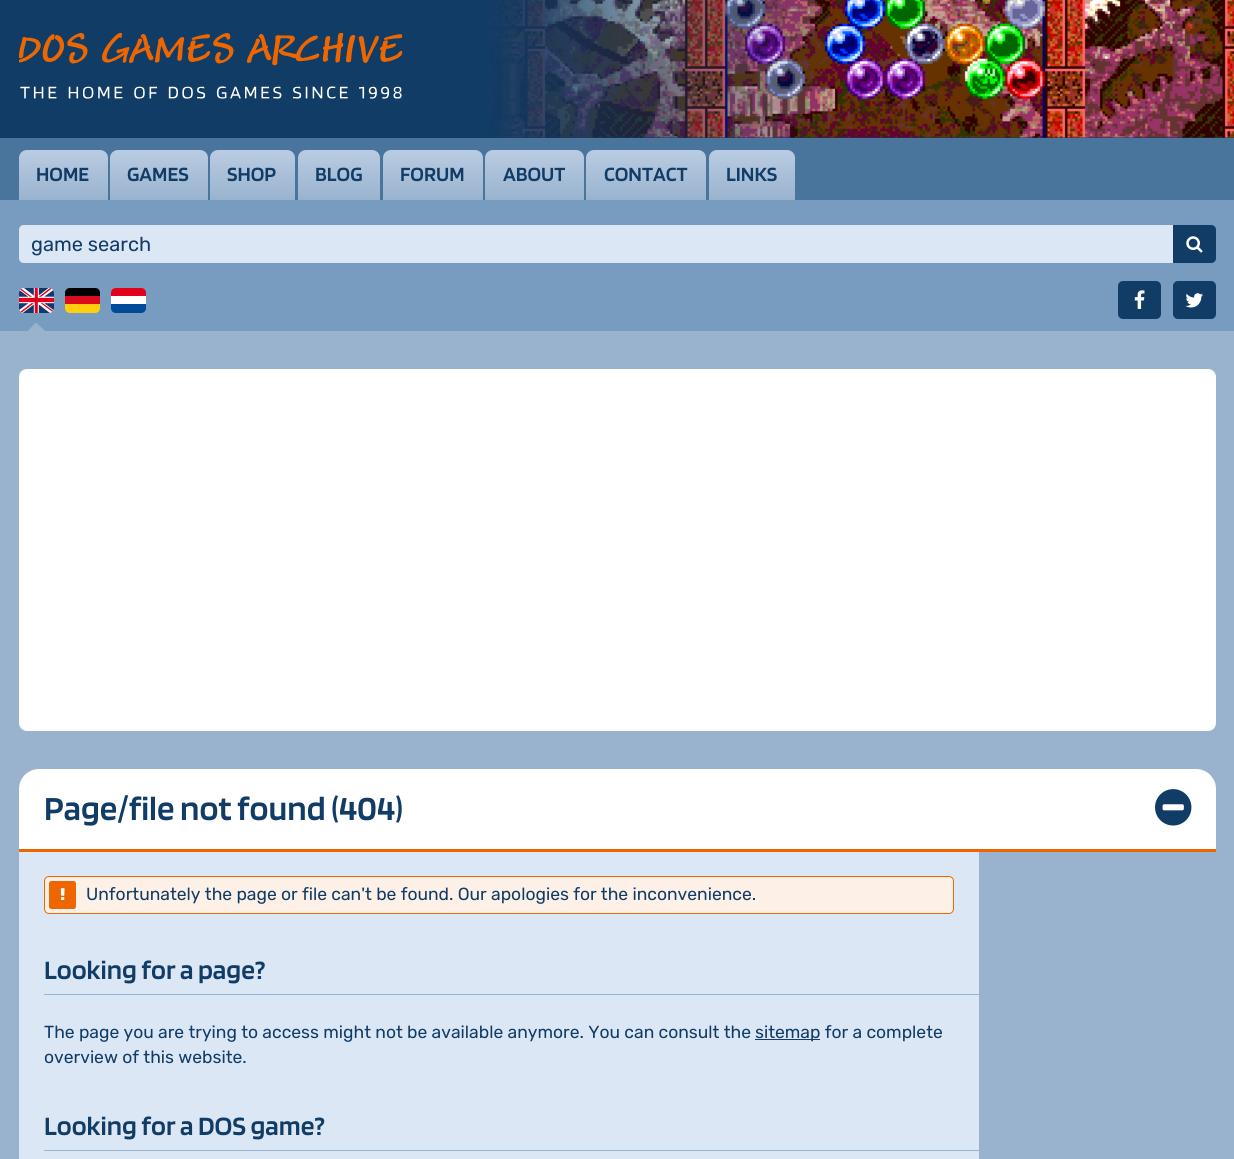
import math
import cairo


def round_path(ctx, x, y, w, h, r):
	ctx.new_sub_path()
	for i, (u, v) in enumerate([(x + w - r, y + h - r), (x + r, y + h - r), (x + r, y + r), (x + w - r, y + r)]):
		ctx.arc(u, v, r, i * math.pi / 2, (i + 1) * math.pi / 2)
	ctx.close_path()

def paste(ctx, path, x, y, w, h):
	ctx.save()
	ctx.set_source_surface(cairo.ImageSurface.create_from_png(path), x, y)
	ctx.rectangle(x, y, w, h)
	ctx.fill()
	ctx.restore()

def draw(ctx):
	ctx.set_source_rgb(0.6, 0.702, 0.812)
	ctx.paint()
	ctx.set_source_rgb(0.067, 0.235, 0.4)
	ctx.rectangle(0, 0, 1234, 138)
	ctx.fill()
	paste(ctx, 'media/1.png', 19, 33, 384, 66)
	paste(ctx, 'media/2.png', 487, 0, 747, 138)
	gradient = cairo.LinearGradient(485, 69, 835, 69)
	gradient.add_color_stop_rgba(0, 0.067, 0.235, 0.4, 1)
	gradient.add_color_stop_rgba(1, 0.067, 0.235, 0.4, 0)
	ctx.set_source(gradient)
	ctx.rectangle(487, 0, 340, 138)
	ctx.fill()
	ctx.set_source_rgb(0.286, 0.455, 0.612)
	ctx.rectangle(0, 138, 1234, 62)
	ctx.fill()
	gradient = cairo.LinearGradient(63, 150, 63, 200)
	gradient.add_color_stop_rgba(0, 0.729, 0.8, 0.886, 1)
	gradient.add_color_stop_rgba(1, 0.6, 0.702, 0.812, 1)
	ctx.set_source(gradient)
	ctx.new_path()
	ctx.move_to(27, 150)
	ctx.line_to(100, 150)
	ctx.curve_to(104.5, 150, 108, 153.5, 108, 158)
	ctx.line_to(108, 200)
	ctx.line_to(19, 200)
	ctx.line_to(19, 158)
	ctx.curve_to(19, 153.5, 22.5, 150, 27, 150)
	ctx.close_path()
	ctx.fill()
	ctx.select_font_face('Blinker SemiBold')
	ctx.set_font_size(21)
	ctx.set_source_rgb(0.067, 0.235, 0.4)
	ctx.move_to(36, 181)
	ctx.show_text('HOME')
	gradient = cairo.LinearGradient(159, 150, 159, 200)
	gradient.add_color_stop_rgba(0, 0.729, 0.8, 0.886, 1)
	gradient.add_color_stop_rgba(1, 0.6, 0.702, 0.812, 1)
	ctx.set_source(gradient)
	ctx.new_path()
	ctx.move_to(118, 150)
	ctx.line_to(200, 150)
	ctx.curve_to(204.5, 150, 208, 153.5, 208, 158)
	ctx.line_to(208, 200)
	ctx.line_to(110, 200)
	ctx.line_to(110, 158)
	ctx.curve_to(110, 153.5, 113.5, 150, 118, 150)
	ctx.close_path()
	ctx.fill()
	ctx.set_source_rgb(0.067, 0.235, 0.4)
	ctx.move_to(127, 181)
	ctx.show_text('GAMES')
	gradient = cairo.LinearGradient(253, 150, 253, 200)
	gradient.add_color_stop_rgba(0, 0.729, 0.8, 0.886, 1)
	gradient.add_color_stop_rgba(1, 0.6, 0.702, 0.812, 1)
	ctx.set_source(gradient)
	ctx.new_path()
	ctx.move_to(218, 150)
	ctx.line_to(287, 150)
	ctx.curve_to(291.5, 150, 295, 153.5, 295, 158)
	ctx.line_to(295, 200)
	ctx.line_to(210, 200)
	ctx.line_to(210, 158)
	ctx.curve_to(210, 153.5, 213.5, 150, 218, 150)
	ctx.close_path()
	ctx.fill()
	ctx.set_source_rgb(0.067, 0.235, 0.4)
	ctx.move_to(227, 181)
	ctx.show_text('SHOP')
	gradient = cairo.LinearGradient(339, 150, 339, 200)
	gradient.add_color_stop_rgba(0, 0.729, 0.8, 0.886, 1)
	gradient.add_color_stop_rgba(1, 0.6, 0.702, 0.812, 1)
	ctx.set_source(gradient)
	ctx.new_path()
	ctx.move_to(306, 150)
	ctx.line_to(372, 150)
	ctx.curve_to(376.5, 150, 380, 153.5, 380, 158)
	ctx.line_to(380, 200)
	ctx.line_to(298, 200)
	ctx.line_to(298, 158)
	ctx.curve_to(298, 153.5, 301.5, 150, 306, 150)
	ctx.close_path()
	ctx.fill()
	ctx.set_source_rgb(0.067, 0.235, 0.4)
	ctx.move_to(315, 181)
	ctx.show_text('BLOG')
	gradient = cairo.LinearGradient(433, 150, 433, 200)
	gradient.add_color_stop_rgba(0, 0.729, 0.8, 0.886, 1)
	gradient.add_color_stop_rgba(1, 0.6, 0.702, 0.812, 1)
	ctx.set_source(gradient)
	ctx.new_path()
	ctx.move_to(391, 150)
	ctx.line_to(475, 150)
	ctx.curve_to(479.5, 150, 483, 153.5, 483, 158)
	ctx.line_to(483, 200)
	ctx.line_to(383, 200)
	ctx.line_to(383, 158)
	ctx.curve_to(383, 153.5, 386.5, 150, 391, 150)
	ctx.close_path()
	ctx.fill()
	ctx.set_source_rgb(0.067, 0.235, 0.4)
	ctx.move_to(400, 181)
	ctx.show_text('FORUM')
	gradient = cairo.LinearGradient(534, 150, 534, 200)
	gradient.add_color_stop_rgba(0, 0.729, 0.8, 0.886, 1)
	gradient.add_color_stop_rgba(1, 0.6, 0.702, 0.812, 1)
	ctx.set_source(gradient)
	ctx.new_path()
	ctx.move_to(493, 150)
	ctx.line_to(576, 150)
	ctx.curve_to(580.5, 150, 584, 153.5, 584, 158)
	ctx.line_to(584, 200)
	ctx.line_to(485, 200)
	ctx.line_to(485, 158)
	ctx.curve_to(485, 153.5, 488.5, 150, 493, 150)
	ctx.close_path()
	ctx.fill()
	ctx.set_source_rgb(0.067, 0.235, 0.4)
	ctx.move_to(503, 181)
	ctx.show_text('ABOUT')
	gradient = cairo.LinearGradient(646, 150, 646, 200)
	gradient.add_color_stop_rgba(0, 0.729, 0.8, 0.886, 1)
	gradient.add_color_stop_rgba(1, 0.6, 0.702, 0.812, 1)
	ctx.set_source(gradient)
	ctx.new_path()
	ctx.move_to(594, 150)
	ctx.line_to(698, 150)
	ctx.curve_to(702.5, 150, 706, 153.5, 706, 158)
	ctx.line_to(706, 200)
	ctx.line_to(586, 200)
	ctx.line_to(586, 158)
	ctx.curve_to(586, 153.5, 589.5, 150, 594, 150)
	ctx.close_path()
	ctx.fill()
	ctx.set_source_rgb(0.067, 0.235, 0.4)
	ctx.move_to(604, 181)
	ctx.show_text('CONTACT')
	gradient = cairo.LinearGradient(752, 150, 752, 200)
	gradient.add_color_stop_rgba(0, 0.729, 0.8, 0.886, 1)
	gradient.add_color_stop_rgba(1, 0.6, 0.702, 0.812, 1)
	ctx.set_source(gradient)
	ctx.new_path()
	ctx.move_to(717, 150)
	ctx.line_to(787, 150)
	ctx.curve_to(791.5, 150, 795, 153.5, 795, 158)
	ctx.line_to(795, 200)
	ctx.line_to(709, 200)
	ctx.line_to(709, 158)
	ctx.curve_to(709, 153.5, 712.5, 150, 717, 150)
	ctx.close_path()
	ctx.fill()
	ctx.set_source_rgb(0.067, 0.235, 0.4)
	ctx.move_to(726, 181)
	ctx.show_text('LINKS')
	ctx.set_source_rgb(0.467, 0.612, 0.753)
	ctx.rectangle(0, 200, 1234, 131)
	ctx.fill()
	ctx.set_source_rgb(0.863, 0.906, 0.961)
	ctx.new_path()
	ctx.move_to(24, 225)
	ctx.line_to(1173, 225)
	ctx.line_to(1173, 263)
	ctx.line_to(24, 263)
	ctx.curve_to(21, 263, 19, 261, 19, 258)
	ctx.line_to(19, 230)
	ctx.curve_to(19, 227, 21, 225, 24, 225)
	ctx.close_path()
	ctx.fill()
	ctx.select_font_face('Rubik')
	ctx.set_font_size(20)
	ctx.set_source_rgb(0.067, 0.235, 0.4)
	ctx.move_to(31, 251)
	ctx.show_text('game search')
	ctx.new_path()
	ctx.move_to(1173, 225)
	ctx.line_to(1211, 225)
	ctx.curve_to(1214, 225, 1216, 227, 1216, 230)
	ctx.line_to(1216, 258)
	ctx.curve_to(1216, 261, 1214, 263, 1211, 263)
	ctx.line_to(1173, 263)
	ctx.close_path()
	ctx.fill()
	paste(ctx, 'media/3.png', 1186, 236, 17, 17)
	ctx.save()
	ctx.rectangle(28, 323, 17, 8)
	ctx.clip()
	ctx.set_source_rgb(0.6, 0.702, 0.812)
	ctx.new_path()
	ctx.move_to(27.5, 331)
	ctx.line_to(36, 322.5)
	ctx.line_to(45, 331)
	ctx.close_path()
	ctx.fill()
	ctx.restore()
	paste(ctx, 'media/4.png', 19, 288, 35, 25)
	ctx.set_source_rgb(0, 0, 0)
	ctx.new_path()
	ctx.move_to(70, 288)
	ctx.line_to(95, 288)
	ctx.curve_to(98, 288, 100, 290, 100, 293)
	ctx.line_to(100, 296)
	ctx.line_to(65, 296)
	ctx.line_to(65, 293)
	ctx.curve_to(65, 290, 67, 288, 70, 288)
	ctx.close_path()
	ctx.fill()
	ctx.set_source_rgb(0.863, 0.047, 0.106)
	ctx.rectangle(65, 296, 35, 8)
	ctx.fill()
	ctx.set_source_rgb(1, 0.812, 0.051)
	ctx.new_path()
	ctx.move_to(65, 304)
	ctx.line_to(100, 304)
	ctx.line_to(100, 308)
	ctx.curve_to(100, 311, 98, 313, 95, 313)
	ctx.line_to(70, 313)
	ctx.curve_to(67, 313, 65, 311, 65, 308)
	ctx.close_path()
	ctx.fill()
	ctx.set_source_rgb(0, 0.29, 0.6)
	ctx.new_path()
	ctx.move_to(111, 304)
	ctx.line_to(146, 304)
	ctx.line_to(146, 308)
	ctx.curve_to(146, 311, 144, 313, 141, 313)
	ctx.line_to(116, 313)
	ctx.curve_to(113, 313, 111, 311, 111, 308)
	ctx.close_path()
	ctx.fill()
	ctx.set_source_rgb(1, 1, 1)
	ctx.rectangle(111, 296, 35, 8)
	ctx.fill()
	ctx.set_source_rgb(0.886, 0, 0.102)
	ctx.new_path()
	ctx.move_to(116, 288)
	ctx.line_to(141, 288)
	ctx.curve_to(144, 288, 146, 290, 146, 293)
	ctx.line_to(146, 296)
	ctx.line_to(111, 296)
	ctx.line_to(111, 293)
	ctx.curve_to(111, 290, 113, 288, 116, 288)
	ctx.close_path()
	ctx.fill()
	ctx.set_source_rgb(0.067, 0.235, 0.4)
	round_path(ctx, 1118, 281, 43, 38, 5)
	ctx.fill()
	paste(ctx, 'media/5.png', 1134, 290, 11, 19)
	round_path(ctx, 1173, 281, 43, 38, 5)
	ctx.fill()
	paste(ctx, 'media/6.png', 1185, 293, 18, 15)
	ctx.set_source_rgb(1, 1, 1)
	round_path(ctx, 19, 369, 1197, 362, 8)
	ctx.fill()
	ctx.new_path()
	ctx.move_to(39, 769)
	ctx.line_to(1196, 769)
	ctx.curve_to(1207, 769, 1216, 778, 1216, 789)
	ctx.line_to(1216, 851)
	ctx.line_to(19, 851)
	ctx.line_to(19, 789)
	ctx.curve_to(19, 778, 28, 769, 39, 769)
	ctx.close_path()
	ctx.fill()
	ctx.set_source_rgb(0.933, 0.4, 0)
	ctx.rectangle(19, 849, 1197, 3)
	ctx.fill()
	ctx.select_font_face('Blinker SemiBold')
	ctx.set_font_size(35)
	ctx.set_source_rgb(0.067, 0.235, 0.4)
	ctx.move_to(44, 820)
	ctx.show_text('Page/file not found (404)')
	paste(ctx, 'media/7.png', 1155, 789, 37, 37)
	ctx.set_source_rgb(0.863, 0.906, 0.961)
	ctx.rectangle(19, 852, 960, 307)
	ctx.fill()
	ctx.set_source_rgb(1, 1, 1)
	round_path(ctx, 44, 876, 910, 38, 5)
	ctx.fill()
	ctx.set_source_rgba(0.933, 0.4, 0, 0.1)
	round_path(ctx, 44.5, 876.5, 909, 37, 4.5)
	ctx.fill_preserve()
	ctx.set_source_rgb(0.933, 0.4, 0)
	ctx.set_line_width(1)
	ctx.stroke()
	round_path(ctx, 49, 881, 27, 28, 2.5)
	ctx.fill()
	paste(ctx, 'media/8.png', 60, 888, 5, 12)
	ctx.select_font_face('Rubik')
	ctx.set_font_size(17.5)
	ctx.set_source_rgb(0.067, 0.235, 0.4)
	ctx.move_to(86, 900)
	ctx.show_text('Unfortunately the page or file can\'t be found. Our apologies for the inconvenience.')
	ctx.set_source_rgb(0.6, 0.702, 0.812)
	ctx.rectangle(44, 994, 935, 1)
	ctx.fill()
	ctx.select_font_face('Blinker SemiBold')
	ctx.set_font_size(27.5)
	ctx.set_source_rgb(0.067, 0.235, 0.4)
	ctx.move_to(44, 979)
	ctx.show_text('Looking for a page?')
	ctx.select_font_face('Rubik')
	ctx.set_font_size(17.5)
	ctx.move_to(44, 1038)
	ctx.show_text('The page you are trying to access might not be available anymore. You can consult the')
	ctx.rectangle(755, 1039, 65, 1)
	ctx.fill()
	ctx.move_to(755, 1038)
	ctx.show_text('sitemap for a complete')
	ctx.move_to(44, 1063)
	ctx.show_text('overview of this website.')
	ctx.set_source_rgb(0.6, 0.702, 0.812)
	ctx.rectangle(44, 1150, 935, 1)
	ctx.fill()
	ctx.select_font_face('Blinker SemiBold')
	ctx.set_font_size(27.5)
	ctx.set_source_rgb(0.067, 0.235, 0.4)
	ctx.move_to(44, 1135)
	ctx.show_text('Looking for a DOS game?')


surface = cairo.ImageSurface(cairo.FORMAT_RGB24, 1234, 1159)
ctx = cairo.Context(surface)
options = cairo.FontOptions()
options.set_hint_metrics(cairo.HINT_METRICS_OFF)
options.set_hint_style(cairo.HINT_STYLE_NONE)
ctx.set_font_options(options)
ctx.set_miter_limit(4)
draw(ctx)
surface.write_to_png('image.png')
